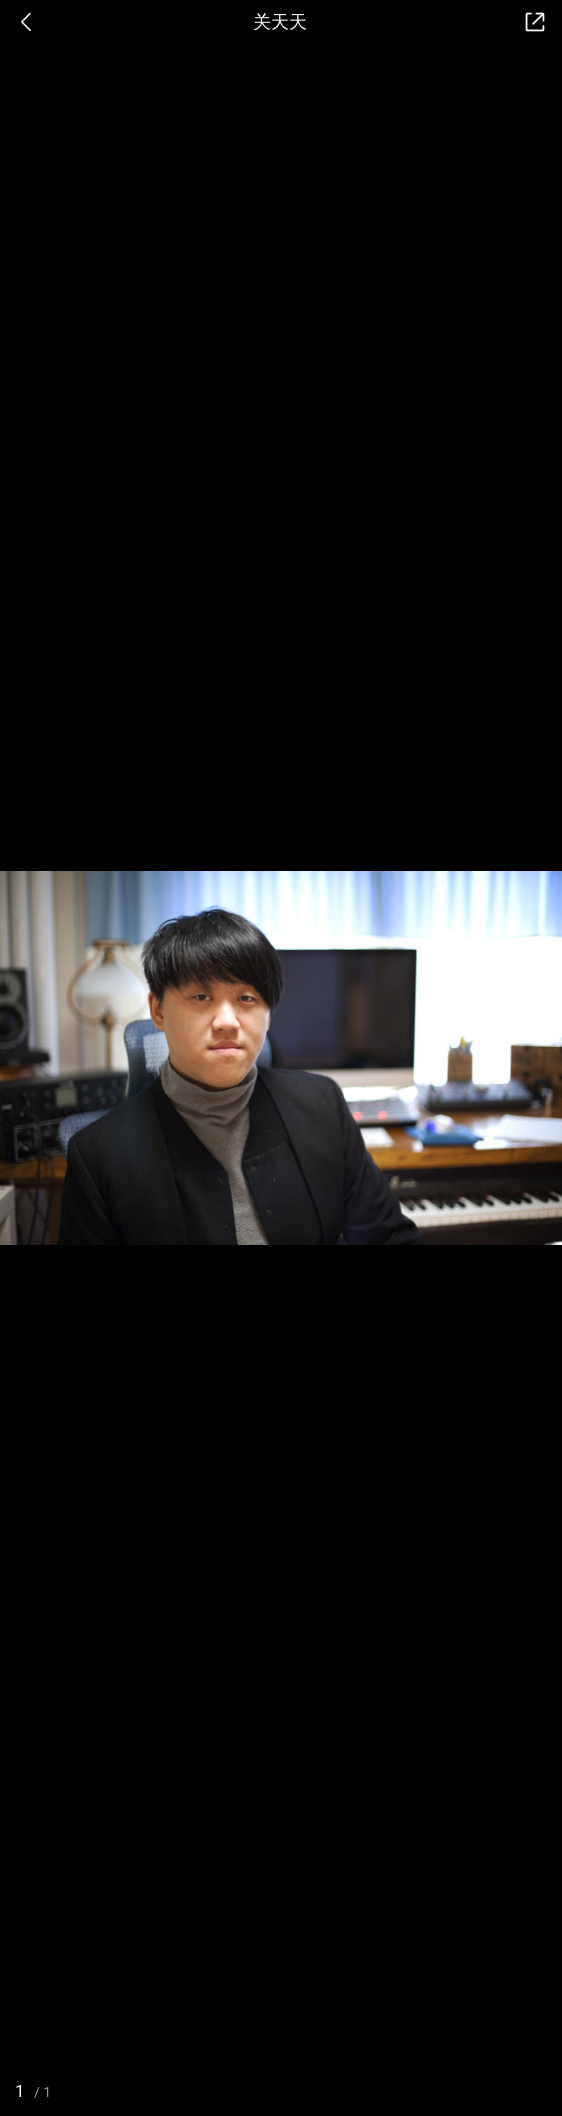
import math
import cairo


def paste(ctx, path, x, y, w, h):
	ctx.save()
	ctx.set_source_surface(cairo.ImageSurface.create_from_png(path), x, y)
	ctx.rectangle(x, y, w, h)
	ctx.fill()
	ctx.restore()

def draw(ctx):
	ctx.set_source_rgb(0, 0, 0)
	ctx.paint()
	paste(ctx, 'media/1.png', 21, 12, 10, 20)
	ctx.select_font_face('WenQuanYi Zen Hei Medium')
	ctx.set_font_size(18)
	ctx.set_source_rgb(1, 1, 1)
	ctx.move_to(253, 28)
	ctx.show_text('关天天')
	paste(ctx, 'media/2.png', 525, 12, 20, 20)
	paste(ctx, 'media/3.png', 0, 871, 562, 374)
	ctx.select_font_face('Roboto')
	ctx.set_font_size(17)
	ctx.move_to(15, 2097)
	ctx.show_text('1')
	ctx.set_font_size(14)
	ctx.set_source_rgb(0.6, 0.6, 0.6)
	ctx.move_to(34, 2097)
	ctx.show_text('/ 1')


surface = cairo.ImageSurface(cairo.FORMAT_RGB24, 562, 2116)
ctx = cairo.Context(surface)
options = cairo.FontOptions()
options.set_hint_metrics(cairo.HINT_METRICS_OFF)
options.set_hint_style(cairo.HINT_STYLE_NONE)
ctx.set_font_options(options)
ctx.set_miter_limit(4)
draw(ctx)
surface.write_to_png('image.png')
